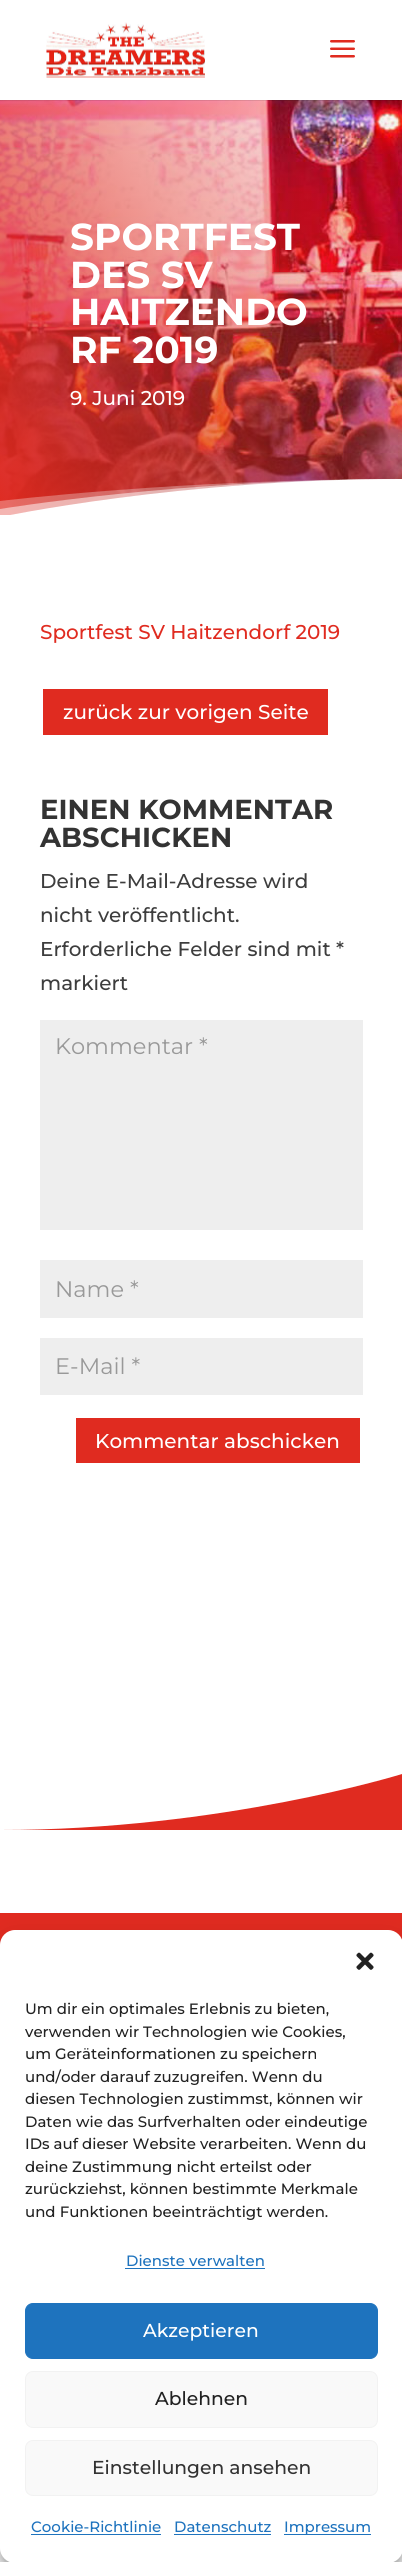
import math
import cairo


def round_path(ctx, x, y, w, h, r):
	ctx.new_sub_path()
	for i, (u, v) in enumerate([(x + w - r, y + h - r), (x + r, y + h - r), (x + r, y + r), (x + w - r, y + r)]):
		ctx.arc(u, v, r, i * math.pi / 2, (i + 1) * math.pi / 2)
	ctx.close_path()

def blur_box(ctx, x, y, w, h, r, blur, alpha):
	ctx.push_group_with_content(cairo.CONTENT_ALPHA)
	ctx.set_operator(cairo.OPERATOR_SOURCE)
	for i in range(15, -16, -2):
		e = blur * i / 6
		if min(w, h) + 2 * e > 0:
			ctx.set_source_rgba(0, 0, 0, alpha * math.erfc((i - 1) / 8.5) / 2)
			round_path(ctx, x - e, y - e, w + 2 * e, h + 2 * e, max(0, min(r + e + blur * .6, min(w, h) / 2 + e)))
			ctx.fill()
	ctx.mask(ctx.pop_group())

def paste(ctx, path, x, y, w, h):
	ctx.save()
	ctx.set_source_surface(cairo.ImageSurface.create_from_png(path), x, y)
	ctx.rectangle(x, y, w, h)
	ctx.fill()
	ctx.restore()

def draw(ctx):
	ctx.set_source_rgb(1, 1, 1)
	ctx.paint()
	paste(ctx, 'media/3.png', 0, 100, 402, 415)
	ctx.set_source_rgba(0, 0, 0, 0.1)
	ctx.new_path()
	ctx.move_to(0, 100)
	ctx.line_to(0, 101)
	ctx.line_to(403, 101)
	ctx.line_to(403, 1)
	ctx.line_to(402, 1)
	ctx.line_to(402, 100)
	ctx.close_path()
	ctx.fill()
	paste(ctx, 'media/1.png', 46, 22, 159, 56)
	paste(ctx, 'media/2.png', 330, 40, 25, 18)
	ctx.select_font_face('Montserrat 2 Thin')
	ctx.set_font_size(37.5)
	ctx.set_source_rgb(1, 1, 1)
	for x, y, s in [
		(70, 250, 'SPORTFEST'),
		(70, 288, 'DES SV'),
		(70, 325, 'HAITZENDO'),
		(70, 363, 'RF 2019'),
	]:
		ctx.move_to(x, y)
		ctx.show_text(s)
	ctx.select_font_face('Montserrat Thin')
	ctx.set_font_size(20)
	ctx.move_to(70, 405)
	ctx.show_text('9. Juni 2019')
	ctx.save()
	ctx.rectangle(0, 479, 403, 37)
	ctx.clip()
	ctx.set_source_rgba(1, 1, 1, 0.3)
	ctx.new_path()
	ctx.move_to(0, 517)
	ctx.line_to(0, 501)
	ctx.curve_to(0, 501, 180, 479, 402, 479)
	ctx.line_to(402, 517)
	ctx.close_path()
	ctx.fill()
	ctx.set_source_rgba(1, 1, 1, 0.5)
	ctx.new_path()
	ctx.move_to(0, 517)
	ctx.line_to(0, 509)
	ctx.curve_to(0, 509, 180, 479, 402, 479)
	ctx.line_to(402, 517)
	ctx.close_path()
	ctx.fill()
	ctx.set_source_rgb(1, 1, 1)
	ctx.new_path()
	ctx.move_to(0, 517)
	ctx.curve_to(0, 517, 180, 479, 402, 479)
	ctx.line_to(402, 517)
	ctx.close_path()
	ctx.fill()
	ctx.restore()
	ctx.set_source_rgb(0.878, 0.169, 0.125)
	ctx.move_to(40, 639)
	ctx.show_text('Sportfest SV Haitzendorf 2019')
	ctx.rectangle(43, 689, 285, 46)
	ctx.fill()
	ctx.set_source_rgb(1, 1, 1)
	ctx.move_to(63, 719)
	ctx.show_text('zurück zur vorigen Seite')
	ctx.select_font_face('Montserrat 2 Thin')
	ctx.set_font_size(27.5)
	ctx.set_source_rgb(0.2, 0.2, 0.2)
	ctx.move_to(40, 819)
	ctx.show_text('EINEN KOMMENTAR')
	ctx.move_to(40, 847)
	ctx.show_text('ABSCHICKEN')
	ctx.select_font_face('Montserrat Thin')
	ctx.set_font_size(20)
	ctx.set_source_rgb(0.239, 0.239, 0.239)
	for x, y, s in [
		(40, 888, 'Deine E-Mail-Adresse wird'),
		(40, 922, 'nicht veröffentlicht.'),
		(40, 956, 'Erforderliche Felder sind mit *'),
		(40, 990, 'markiert'),
	]:
		ctx.move_to(x, y)
		ctx.show_text(s)
	ctx.set_source_rgb(0.933, 0.933, 0.933)
	ctx.rectangle(40, 1020, 323, 210)
	ctx.fill()
	ctx.select_font_face('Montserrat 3 Thin')
	ctx.set_font_size(22.5)
	ctx.set_source_rgb(0.6, 0.6, 0.6)
	ctx.move_to(55, 1054)
	ctx.show_text('Kommentar *')
	ctx.set_source_rgb(0.933, 0.933, 0.933)
	ctx.rectangle(40, 1260, 323, 58)
	ctx.fill()
	ctx.set_source_rgb(0.6, 0.6, 0.6)
	ctx.move_to(55, 1297)
	ctx.show_text('Name *')
	ctx.set_source_rgb(0.933, 0.933, 0.933)
	ctx.rectangle(40, 1338, 323, 57)
	ctx.fill()
	ctx.set_source_rgb(0.6, 0.6, 0.6)
	ctx.move_to(55, 1374)
	ctx.show_text('E-Mail *')
	ctx.set_source_rgb(0.878, 0.169, 0.125)
	ctx.rectangle(76, 1418, 284, 45)
	ctx.fill()
	ctx.select_font_face('Montserrat Thin')
	ctx.set_font_size(20)
	ctx.set_source_rgb(1, 1, 1)
	ctx.move_to(95, 1448)
	ctx.show_text('Kommentar abschicken')
	ctx.set_source_rgb(0.878, 0.169, 0.125)
	ctx.new_path()
	ctx.move_to(402, 1830)
	ctx.line_to(0, 1830)
	ctx.curve_to(222, 1830, 402, 1774, 402, 1774)
	ctx.close_path()
	ctx.fill()
	ctx.rectangle(0, 1913, 402, 32)
	ctx.fill()
	ctx.set_source_rgb(0, 0, 0)
	blur_box(ctx, 0, 1938, 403, 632, 15, 4, 0.23)
	blur_box(ctx, 0, 1943, 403, 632, 15, 12.5, 0.19)
	ctx.set_source_rgb(1, 1, 1)
	round_path(ctx, 0, 1930, 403, 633, 15)
	ctx.fill()
	paste(ctx, 'media/4.png', 356, 1952, 18, 18)
	ctx.set_font_size(15)
	ctx.set_source_rgb(0.133, 0.133, 0.133)
	for x, y, s in [
		(25, 2014, 'Um dir ein optimales Erlebnis zu bieten,'),
		(25, 2037, 'verwenden wir Technologien wie Cookies,'),
		(25, 2059, 'um Geräteinformationen zu speichern'),
		(25, 2082, 'und/oder darauf zuzugreifen. Wenn du'),
		(25, 2104, 'diesen Technologien zustimmst, können wir'),
		(25, 2127, 'Daten wie das Surfverhalten oder eindeutige'),
		(25, 2149, 'IDs auf dieser Website verarbeiten. Wenn du'),
		(25, 2172, 'deine Zustimmung nicht erteilst oder'),
		(25, 2194, 'zurückziehst, können bestimmte Merkmale'),
		(25, 2217, 'und Funktionen beeinträchtigt werden.'),
	]:
		ctx.move_to(x, y)
		ctx.show_text(s)
	ctx.set_source_rgb(0.118, 0.451, 0.745)
	ctx.move_to(126, 2266)
	ctx.show_text('Dienste verwalten')
	ctx.rectangle(125, 2268, 140, 1)
	ctx.fill()
	round_path(ctx, 25.5, 2303.5, 352, 55, 7.5)
	ctx.fill_preserve()
	ctx.set_line_width(1)
	ctx.stroke()
	ctx.set_font_size(18.75)
	ctx.set_source_rgb(1, 1, 1)
	ctx.move_to(143, 2337)
	ctx.show_text('Akzeptieren')
	ctx.set_source_rgb(0.976, 0.976, 0.976)
	round_path(ctx, 25.5, 2371.5, 352, 56, 7.5)
	ctx.fill_preserve()
	ctx.set_source_rgb(0.949, 0.949, 0.949)
	ctx.stroke()
	ctx.set_source_rgb(0.133, 0.133, 0.133)
	ctx.move_to(155, 2405)
	ctx.show_text('Ablehnen')
	ctx.set_source_rgb(0.976, 0.976, 0.976)
	round_path(ctx, 25.5, 2440.5, 352, 55, 7.5)
	ctx.fill_preserve()
	ctx.set_source_rgb(0.949, 0.949, 0.949)
	ctx.stroke()
	ctx.set_source_rgb(0.2, 0.2, 0.2)
	ctx.move_to(92, 2474)
	ctx.show_text('Einstellungen ansehen')
	ctx.set_font_size(15)
	ctx.set_source_rgb(0.118, 0.451, 0.745)
	ctx.move_to(31, 2532)
	ctx.show_text('Cookie-Richtlinie')
	ctx.rectangle(31, 2534, 130, 1)
	ctx.fill()
	ctx.move_to(174, 2532)
	ctx.show_text('Datenschutz')
	ctx.rectangle(174, 2534, 97, 1)
	ctx.fill()
	ctx.rectangle(284, 2534, 87, 1)
	ctx.fill()
	ctx.move_to(284, 2532)
	ctx.show_text('Impressum')


surface = cairo.ImageSurface(cairo.FORMAT_RGB24, 402, 2562)
ctx = cairo.Context(surface)
options = cairo.FontOptions()
options.set_hint_metrics(cairo.HINT_METRICS_OFF)
options.set_hint_style(cairo.HINT_STYLE_NONE)
ctx.set_font_options(options)
ctx.set_miter_limit(4)
draw(ctx)
surface.write_to_png('image.png')
